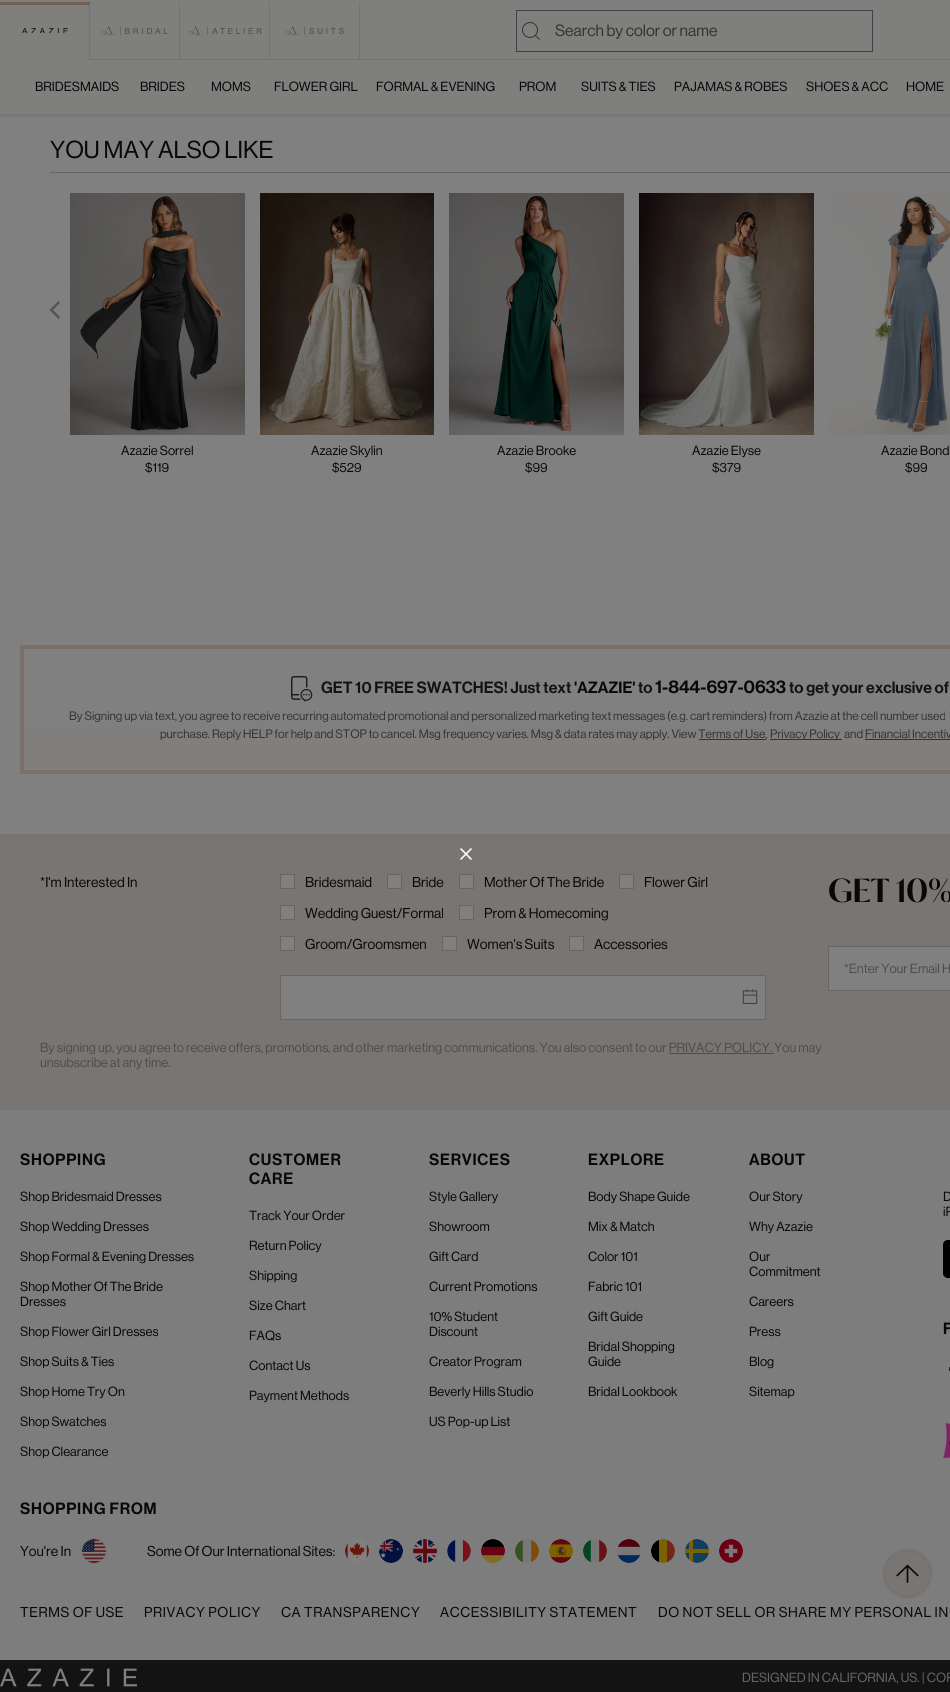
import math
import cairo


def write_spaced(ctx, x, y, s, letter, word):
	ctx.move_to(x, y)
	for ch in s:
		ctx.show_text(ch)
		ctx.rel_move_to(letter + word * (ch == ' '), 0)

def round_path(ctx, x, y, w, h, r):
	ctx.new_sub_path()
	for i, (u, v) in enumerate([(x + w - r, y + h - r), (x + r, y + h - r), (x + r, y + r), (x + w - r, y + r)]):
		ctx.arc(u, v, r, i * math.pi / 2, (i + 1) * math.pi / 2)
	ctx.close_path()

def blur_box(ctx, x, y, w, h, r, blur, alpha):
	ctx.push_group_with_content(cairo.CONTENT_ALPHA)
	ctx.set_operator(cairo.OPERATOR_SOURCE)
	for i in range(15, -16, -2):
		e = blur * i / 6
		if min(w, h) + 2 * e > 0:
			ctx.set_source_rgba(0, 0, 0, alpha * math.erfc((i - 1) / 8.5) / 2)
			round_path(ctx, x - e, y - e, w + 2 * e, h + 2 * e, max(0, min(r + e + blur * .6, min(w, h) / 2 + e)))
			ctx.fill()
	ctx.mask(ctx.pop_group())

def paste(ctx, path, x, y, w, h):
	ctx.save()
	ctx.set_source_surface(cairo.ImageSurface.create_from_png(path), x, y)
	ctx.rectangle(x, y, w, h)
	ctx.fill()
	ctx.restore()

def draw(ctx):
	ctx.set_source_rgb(0.502, 0.502, 0.502)
	ctx.paint()
	ctx.set_source_rgb(0.498, 0.498, 0.49)
	ctx.rectangle(0, 0, 950, 59)
	ctx.fill()
	ctx.set_source_rgb(0.451, 0.451, 0.451)
	ctx.rectangle(89, 59, 861, 1)
	ctx.rectangle(89, 2, 1, 57)
	ctx.fill()
	ctx.set_source_rgb(0.447, 0.373, 0.318)
	ctx.rectangle(0, 2, 90, 3)
	ctx.fill()
	paste(ctx, 'media/1.png', 22, 28, 46, 5)
	ctx.set_source_rgb(0.498, 0.498, 0.49)
	ctx.rectangle(0, 59, 89, 1)
	ctx.fill()
	ctx.set_source_rgb(0.451, 0.451, 0.451)
	ctx.rectangle(179, 2, 1, 57)
	ctx.fill()
	paste(ctx, 'media/2.png', 101, 26, 67, 9)
	ctx.rectangle(269, 2, 1, 57)
	ctx.fill()
	paste(ctx, 'media/3.png', 188, 26, 74, 9)
	ctx.rectangle(359, 2, 1, 57)
	ctx.fill()
	paste(ctx, 'media/4.png', 285, 26, 59, 9)
	ctx.rectangle(516.5, 10.5, 356, 41)
	ctx.set_source_rgb(0.235, 0.255, 0.263)
	ctx.set_line_width(1)
	ctx.stroke()
	paste(ctx, 'media/5.png', 522, 22, 18, 18)
	ctx.select_font_face('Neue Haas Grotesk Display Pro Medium')
	ctx.set_font_size(16)
	ctx.set_source_rgb(0.2, 0.2, 0.2)
	ctx.move_to(555, 36)
	ctx.show_text('Search by color or name')
	ctx.set_source_rgb(0.498, 0.498, 0.49)
	ctx.rectangle(0, 60, 950, 54)
	ctx.fill()
	ctx.set_source_rgb(0.475, 0.475, 0.475)
	ctx.rectangle(0, 114, 950, 3)
	ctx.fill()
	ctx.set_font_size(13)
	ctx.set_source_rgb(0.035, 0.035, 0.035)
	for x, y, s in [
		(35, 91, 'BRIDESMAIDS'),
		(140, 91, 'BRIDES'),
		(211, 91, 'MOMS'),
		(274, 91, 'FLOWER GIRL'),
		(376, 91, 'FORMAL & EVENING'),
		(519, 91, 'PROM'),
		(581, 91, 'SUITS & TIES'),
		(674, 91, 'PAJAMAS & ROBES'),
		(806, 91, 'SHOES & ACC'),
		(906, 91, 'HOME'),
	]:
		ctx.move_to(x, y)
		ctx.show_text(s)
	ctx.set_source_rgb(0.4, 0.4, 0.4)
	ctx.rectangle(50, 172, 900, 1)
	ctx.fill()
	ctx.set_font_size(24)
	ctx.set_source_rgb(0.035, 0.035, 0.035)
	ctx.move_to(50, 158)
	ctx.show_text('YOU MAY ALSO LIKE')
	ctx.set_source_rgb(0.325, 0.325, 0.325)
	ctx.new_path()
	ctx.move_to(58.5, 319)
	ctx.line_to(49.5, 310)
	ctx.line_to(58.5, 301)
	ctx.line_to(60, 302.5)
	ctx.line_to(53, 310)
	ctx.line_to(60, 317)
	ctx.close_path()
	ctx.fill()
	paste(ctx, 'media/6.png', 70, 193, 175, 242)
	ctx.set_font_size(13)
	ctx.set_source_rgb(0.035, 0.035, 0.035)
	ctx.move_to(121, 455)
	ctx.show_text('Azazie Sorrel')
	ctx.move_to(145, 472)
	ctx.show_text('$119')
	paste(ctx, 'media/7.png', 260, 193, 174, 242)
	ctx.move_to(311, 455)
	ctx.show_text('Azazie Skylin')
	ctx.move_to(332, 472)
	ctx.show_text('$529')
	paste(ctx, 'media/8.png', 449, 193, 175, 242)
	ctx.move_to(497, 455)
	ctx.show_text('Azazie Brooke')
	ctx.move_to(525, 472)
	ctx.show_text('$99')
	paste(ctx, 'media/9.png', 639, 193, 175, 242)
	ctx.move_to(692, 455)
	ctx.show_text('Azazie Elyse')
	ctx.move_to(712, 472)
	ctx.show_text('$379')
	paste(ctx, 'media/10.png', 829, 193, 121, 242)
	ctx.move_to(881, 455)
	ctx.show_text('Azazie Bond')
	ctx.move_to(905, 472)
	ctx.show_text('$99')
	ctx.set_source_rgb(0.49, 0.49, 0.49)
	ctx.rectangle(0, 1110, 950, 550)
	ctx.fill()
	ctx.set_source_rgb(0, 0, 0)
	blur_box(ctx, 885, 1551, 45, 45, 22.5, 2, 0.25)
	ctx.set_source_rgb(0.475, 0.459, 0.451)
	ctx.arc(907.5, 1573.5, 22.5, 0, 2 * math.pi)
	ctx.fill()
	paste(ctx, 'media/11.png', 896, 1564, 23, 19)
	gradient = cairo.LinearGradient(632, 649, 632, 770)
	gradient.add_color_stop_rgba(0, 0.502, 0.502, 0.502, 1)
	gradient.add_color_stop_rgba(1, 0.502, 0.498, 0.486, 1)
	ctx.set_source(gradient)
	ctx.rectangle(24, 725, 926, 45)
	ctx.fill()
	ctx.rectangle(22, 647, 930, 125)
	ctx.set_source_rgb(0.478, 0.439, 0.412)
	ctx.set_line_width(4)
	ctx.stroke()
	paste(ctx, 'media/12.png', 291, 676, 22, 26)
	ctx.select_font_face('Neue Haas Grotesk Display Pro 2 Medium')
	ctx.set_font_size(16)
	ctx.set_source_rgb(0.078, 0.078, 0.078)
	ctx.move_to(321, 693)
	ctx.show_text('GET 10 FREE SWATCHES! Just text')
	ctx.set_source_rgb(0.035, 0.035, 0.035)
	ctx.move_to(574, 693)
	ctx.show_text('\'AZAZIE\'')
	ctx.set_source_rgb(0.078, 0.078, 0.078)
	ctx.move_to(638, 693)
	ctx.show_text('to')
	ctx.set_font_size(18)
	ctx.set_source_rgb(0.035, 0.035, 0.035)
	ctx.move_to(655, 693)
	ctx.show_text('1-844-697-0633')
	ctx.set_font_size(16)
	ctx.set_source_rgb(0.078, 0.078, 0.078)
	ctx.move_to(789, 693)
	ctx.show_text('to get your exclusive of')
	ctx.select_font_face('Neue Haas Grotesk Display Pro Medium')
	ctx.set_font_size(12)
	ctx.set_source_rgb(0.2, 0.2, 0.2)
	ctx.move_to(69, 720)
	ctx.show_text('By Signing up via text, you agree to receive recurring automated promotional and personalized marketing text messages (e.g. cart reminders) from Azazie at the cell number used')
	ctx.move_to(160, 738)
	ctx.show_text('purchase. Reply HELP for help and STOP to cancel. Msg frequency varies. Msg & data rates may apply. View Terms of Use,')
	ctx.rectangle(770, 739, 72, 1)
	ctx.fill()
	ctx.move_to(770, 738)
	ctx.show_text('Privacy Policy')
	ctx.move_to(844, 738)
	ctx.show_text('and Financial Incentiv')
	ctx.rectangle(699, 739, 67, 1)
	ctx.rectangle(865, 739, 85, 1)
	ctx.fill()
	ctx.set_source_rgb(0.475, 0.459, 0.451)
	ctx.rectangle(0, 834, 950, 276)
	ctx.fill()
	ctx.set_font_size(14)
	ctx.set_source_rgb(0.035, 0.035, 0.035)
	ctx.move_to(40, 887)
	ctx.show_text('*I\'m Interested In')
	ctx.set_source_rgb(0.502, 0.502, 0.502)
	ctx.rectangle(280.5, 874.5, 14, 14)
	ctx.fill_preserve()
	ctx.set_source_rgb(0.4, 0.4, 0.4)
	ctx.set_line_width(1)
	ctx.stroke()
	ctx.set_source_rgb(0.035, 0.035, 0.035)
	ctx.move_to(305, 887)
	ctx.show_text('Bridesmaid')
	ctx.set_source_rgb(0.502, 0.502, 0.502)
	ctx.rectangle(387.5, 874.5, 14, 14)
	ctx.fill_preserve()
	ctx.set_source_rgb(0.4, 0.4, 0.4)
	ctx.stroke()
	ctx.set_source_rgb(0.035, 0.035, 0.035)
	ctx.move_to(412, 887)
	ctx.show_text('Bride')
	ctx.set_source_rgb(0.502, 0.502, 0.502)
	ctx.rectangle(459.5, 874.5, 14, 14)
	ctx.fill_preserve()
	ctx.set_source_rgb(0.4, 0.4, 0.4)
	ctx.stroke()
	ctx.set_source_rgb(0.035, 0.035, 0.035)
	ctx.move_to(484, 887)
	ctx.show_text('Mother Of The Bride')
	ctx.set_source_rgb(0.502, 0.502, 0.502)
	ctx.rectangle(619.5, 874.5, 14, 14)
	ctx.fill_preserve()
	ctx.set_source_rgb(0.4, 0.4, 0.4)
	ctx.stroke()
	ctx.set_source_rgb(0.035, 0.035, 0.035)
	ctx.move_to(644, 887)
	ctx.show_text('Flower Girl')
	ctx.set_source_rgb(0.502, 0.502, 0.502)
	ctx.rectangle(280.5, 905.5, 14, 14)
	ctx.fill_preserve()
	ctx.set_source_rgb(0.4, 0.4, 0.4)
	ctx.stroke()
	ctx.set_source_rgb(0.035, 0.035, 0.035)
	ctx.move_to(305, 918)
	ctx.show_text('Wedding Guest/Formal')
	ctx.set_source_rgb(0.502, 0.502, 0.502)
	ctx.rectangle(459.5, 905.5, 14, 14)
	ctx.fill_preserve()
	ctx.set_source_rgb(0.4, 0.4, 0.4)
	ctx.stroke()
	ctx.set_source_rgb(0.035, 0.035, 0.035)
	ctx.move_to(484, 918)
	ctx.show_text('Prom & Homecoming')
	ctx.set_source_rgb(0.502, 0.502, 0.502)
	ctx.rectangle(280.5, 936.5, 14, 14)
	ctx.fill_preserve()
	ctx.set_source_rgb(0.4, 0.4, 0.4)
	ctx.stroke()
	ctx.set_source_rgb(0.035, 0.035, 0.035)
	ctx.move_to(305, 949)
	ctx.show_text('Groom/Groomsmen')
	ctx.set_source_rgb(0.502, 0.502, 0.502)
	ctx.rectangle(442.5, 936.5, 14, 14)
	ctx.fill_preserve()
	ctx.set_source_rgb(0.4, 0.4, 0.4)
	ctx.stroke()
	ctx.set_source_rgb(0.035, 0.035, 0.035)
	ctx.move_to(467, 949)
	ctx.show_text('Women\'s Suits')
	ctx.set_source_rgb(0.502, 0.502, 0.502)
	ctx.rectangle(569.5, 936.5, 14, 14)
	ctx.fill_preserve()
	ctx.set_source_rgb(0.4, 0.4, 0.4)
	ctx.stroke()
	ctx.set_source_rgb(0.035, 0.035, 0.035)
	ctx.move_to(594, 949)
	ctx.show_text('Accessories')
	ctx.set_source_rgb(0.502, 0.502, 0.502)
	ctx.rectangle(280.5, 975.5, 485, 44)
	ctx.fill_preserve()
	ctx.set_source_rgb(0.4, 0.4, 0.4)
	ctx.stroke()
	paste(ctx, 'media/13.png', 742, 989, 16, 15)
	ctx.set_font_size(13)
	ctx.set_source_rgb(0.302, 0.302, 0.302)
	ctx.move_to(40, 1052)
	ctx.show_text('By signing up, you agree to receive offers, promotions, and other marketing communications. You also consent to our PRIVACY POLICY. You may')
	ctx.rectangle(669, 1053, 105, 1)
	ctx.fill()
	ctx.move_to(40, 1067)
	ctx.show_text('unsubscribe at any time.')
	ctx.select_font_face('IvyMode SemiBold')
	ctx.set_font_size(32)
	ctx.set_source_rgb(0.035, 0.035, 0.035)
	ctx.move_to(828, 902)
	ctx.show_text('GET 10%')
	ctx.set_source_rgb(0.502, 0.502, 0.502)
	ctx.rectangle(828.5, 946.5, 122, 44)
	ctx.fill_preserve()
	ctx.set_source_rgb(0.4, 0.4, 0.4)
	ctx.stroke()
	ctx.select_font_face('Neue Haas Grotesk Display Pro Medium')
	ctx.set_font_size(13)
	ctx.set_source_rgb(0.302, 0.302, 0.302)
	ctx.move_to(844, 973)
	ctx.show_text('*Enter Your Email H')
	ctx.select_font_face('Neue Haas Grotesk Display Pro 2 Medium')
	ctx.set_font_size(16)
	ctx.set_source_rgb(0.035, 0.035, 0.035)
	write_spaced(ctx, 20, 1165, 'SHOPPING', 0.75, 0)
	ctx.select_font_face('Neue Haas Grotesk Display Pro Medium')
	ctx.set_font_size(13)
	for x, y, s in [
		(20, 1201, 'Shop Bridesmaid Dresses'),
		(20, 1231, 'Shop Wedding Dresses'),
		(20, 1261, 'Shop Formal & Evening Dresses'),
		(20, 1291, 'Shop Mother Of The Bride'),
		(20, 1306, 'Dresses'),
		(20, 1336, 'Shop Flower Girl Dresses'),
		(20, 1366, 'Shop Suits & Ties'),
		(20, 1396, 'Shop Home Try On'),
		(20, 1426, 'Shop Swatches'),
		(20, 1456, 'Shop Clearance'),
	]:
		ctx.move_to(x, y)
		ctx.show_text(s)
	ctx.select_font_face('Neue Haas Grotesk Display Pro 2 Medium')
	ctx.set_font_size(16)
	write_spaced(ctx, 249, 1165, 'CUSTOMER', 0.75, 0)
	write_spaced(ctx, 249, 1184, 'CARE', 0.75, 0)
	ctx.select_font_face('Neue Haas Grotesk Display Pro Medium')
	ctx.set_font_size(13)
	for x, y, s in [
		(249, 1220, 'Track Your Order'),
		(249, 1250, 'Return Policy'),
		(249, 1280, 'Shipping'),
		(249, 1310, 'Size Chart'),
		(249, 1340, 'FAQs'),
		(249, 1370, 'Contact Us'),
		(249, 1400, 'Payment Methods'),
	]:
		ctx.move_to(x, y)
		ctx.show_text(s)
	ctx.select_font_face('Neue Haas Grotesk Display Pro 2 Medium')
	ctx.set_font_size(16)
	write_spaced(ctx, 429, 1165, 'SERVICES', 0.75, 0)
	ctx.select_font_face('Neue Haas Grotesk Display Pro Medium')
	ctx.set_font_size(13)
	for x, y, s in [
		(429, 1201, 'Style Gallery'),
		(429, 1231, 'Showroom'),
		(429, 1261, 'Gift Card'),
		(429, 1291, 'Current Promotions'),
		(429, 1321, '10% Student'),
		(429, 1336, 'Discount'),
		(429, 1366, 'Creator Program'),
		(429, 1396, 'Beverly Hills Studio'),
		(429, 1426, 'US Pop-up List'),
	]:
		ctx.move_to(x, y)
		ctx.show_text(s)
	ctx.select_font_face('Neue Haas Grotesk Display Pro 2 Medium')
	ctx.set_font_size(16)
	write_spaced(ctx, 588, 1165, 'EXPLORE', 0.75, 0)
	ctx.select_font_face('Neue Haas Grotesk Display Pro Medium')
	ctx.set_font_size(13)
	for x, y, s in [
		(588, 1201, 'Body Shape Guide'),
		(588, 1231, 'Mix & Match'),
		(588, 1261, 'Color 101'),
		(588, 1291, 'Fabric 101'),
		(588, 1321, 'Gift Guide'),
		(588, 1351, 'Bridal Shopping'),
		(588, 1366, 'Guide'),
		(588, 1396, 'Bridal Lookbook'),
	]:
		ctx.move_to(x, y)
		ctx.show_text(s)
	ctx.select_font_face('Neue Haas Grotesk Display Pro 2 Medium')
	ctx.set_font_size(16)
	write_spaced(ctx, 749, 1165, 'ABOUT', 0.75, 0)
	ctx.select_font_face('Neue Haas Grotesk Display Pro Medium')
	ctx.set_font_size(13)
	for x, y, s in [
		(749, 1201, 'Our Story'),
		(749, 1231, 'Why Azazie'),
		(749, 1261, 'Our'),
		(749, 1276, 'Commitment'),
		(749, 1306, 'Careers'),
		(749, 1336, 'Press'),
		(749, 1366, 'Blog'),
		(749, 1396, 'Sitemap'),
	]:
		ctx.move_to(x, y)
		ctx.show_text(s)
	ctx.select_font_face('Neue Haas Grotesk Display Pro 2 Medium')
	ctx.set_font_size(16)
	write_spaced(ctx, 20, 1514, 'SHOPPING FROM', 0.75, 0)
	ctx.select_font_face('Neue Haas Grotesk Display Pro Medium')
	ctx.set_font_size(14)
	ctx.move_to(20, 1556)
	ctx.show_text('You\'re In')
	ctx.new_path()
	ctx.arc(94, 1551, 12.5, 0, 2 * math.pi)
	ctx.set_source_rgb(0.467, 0.467, 0.467)
	ctx.stroke()
	paste(ctx, 'media/14.png', 82, 1539, 24, 24)
	ctx.set_source_rgb(0.035, 0.035, 0.035)
	ctx.move_to(147, 1556)
	ctx.show_text('Some Of Our International Sites:')
	paste(ctx, 'media/15.png', 345, 1539, 24, 24)
	paste(ctx, 'media/16.png', 379, 1539, 24, 24)
	paste(ctx, 'media/17.png', 413, 1539, 24, 24)
	paste(ctx, 'media/18.png', 447, 1539, 24, 24)
	paste(ctx, 'media/19.png', 481, 1539, 24, 24)
	paste(ctx, 'media/20.png', 515, 1539, 24, 24)
	paste(ctx, 'media/21.png', 549, 1539, 24, 24)
	paste(ctx, 'media/22.png', 583, 1539, 24, 24)
	paste(ctx, 'media/23.png', 617, 1539, 24, 24)
	paste(ctx, 'media/24.png', 651, 1539, 24, 24)
	paste(ctx, 'media/25.png', 685, 1539, 24, 24)
	paste(ctx, 'media/26.png', 719, 1539, 24, 24)
	ctx.set_font_size(13)
	ctx.move_to(943, 1201)
	ctx.show_text('D')
	ctx.move_to(943, 1216)
	ctx.show_text('iP')
	paste(ctx, 'media/27.png', 943, 1240, 7, 38)
	ctx.select_font_face('Neue Haas Grotesk Display Pro 2 Medium')
	ctx.set_font_size(16)
	write_spaced(ctx, 943, 1334, 'F', 0.75, 0)
	paste(ctx, 'media/28.png', 949, 1367, 1, 4)
	paste(ctx, 'media/29.png', 943, 1422, 7, 37)
	ctx.select_font_face('Neue Haas Grotesk Display Pro Medium')
	ctx.set_font_size(14)
	for x, y, s in [
		(20, 1617, 'TERMS OF USE'),
		(144, 1617, 'PRIVACY POLICY'),
		(281, 1617, 'CA TRANSPARENCY'),
		(440, 1617, 'ACCESSIBILITY STATEMENT'),
		(658, 1617, 'DO NOT SELL OR SHARE MY PERSONAL IN'),
	]:
		write_spaced(ctx, x, y, s, 0.6, 0)
	ctx.set_source_rgb(0.078, 0.078, 0.078)
	ctx.rectangle(0, 1660, 950, 32)
	ctx.fill()
	paste(ctx, 'media/30.png', 0, 1668, 137, 19)
	ctx.set_font_size(13)
	ctx.set_source_rgb(0.4, 0.4, 0.4)
	ctx.move_to(742, 1682)
	ctx.show_text('DESIGNED IN CALIFORNIA, US. | COP')
	paste(ctx, 'media/31.png', 460, 848, 12, 12)


surface = cairo.ImageSurface(cairo.FORMAT_RGB24, 950, 1692)
ctx = cairo.Context(surface)
options = cairo.FontOptions()
options.set_hint_metrics(cairo.HINT_METRICS_OFF)
options.set_hint_style(cairo.HINT_STYLE_NONE)
ctx.set_font_options(options)
ctx.set_miter_limit(4)
draw(ctx)
surface.write_to_png('image.png')
